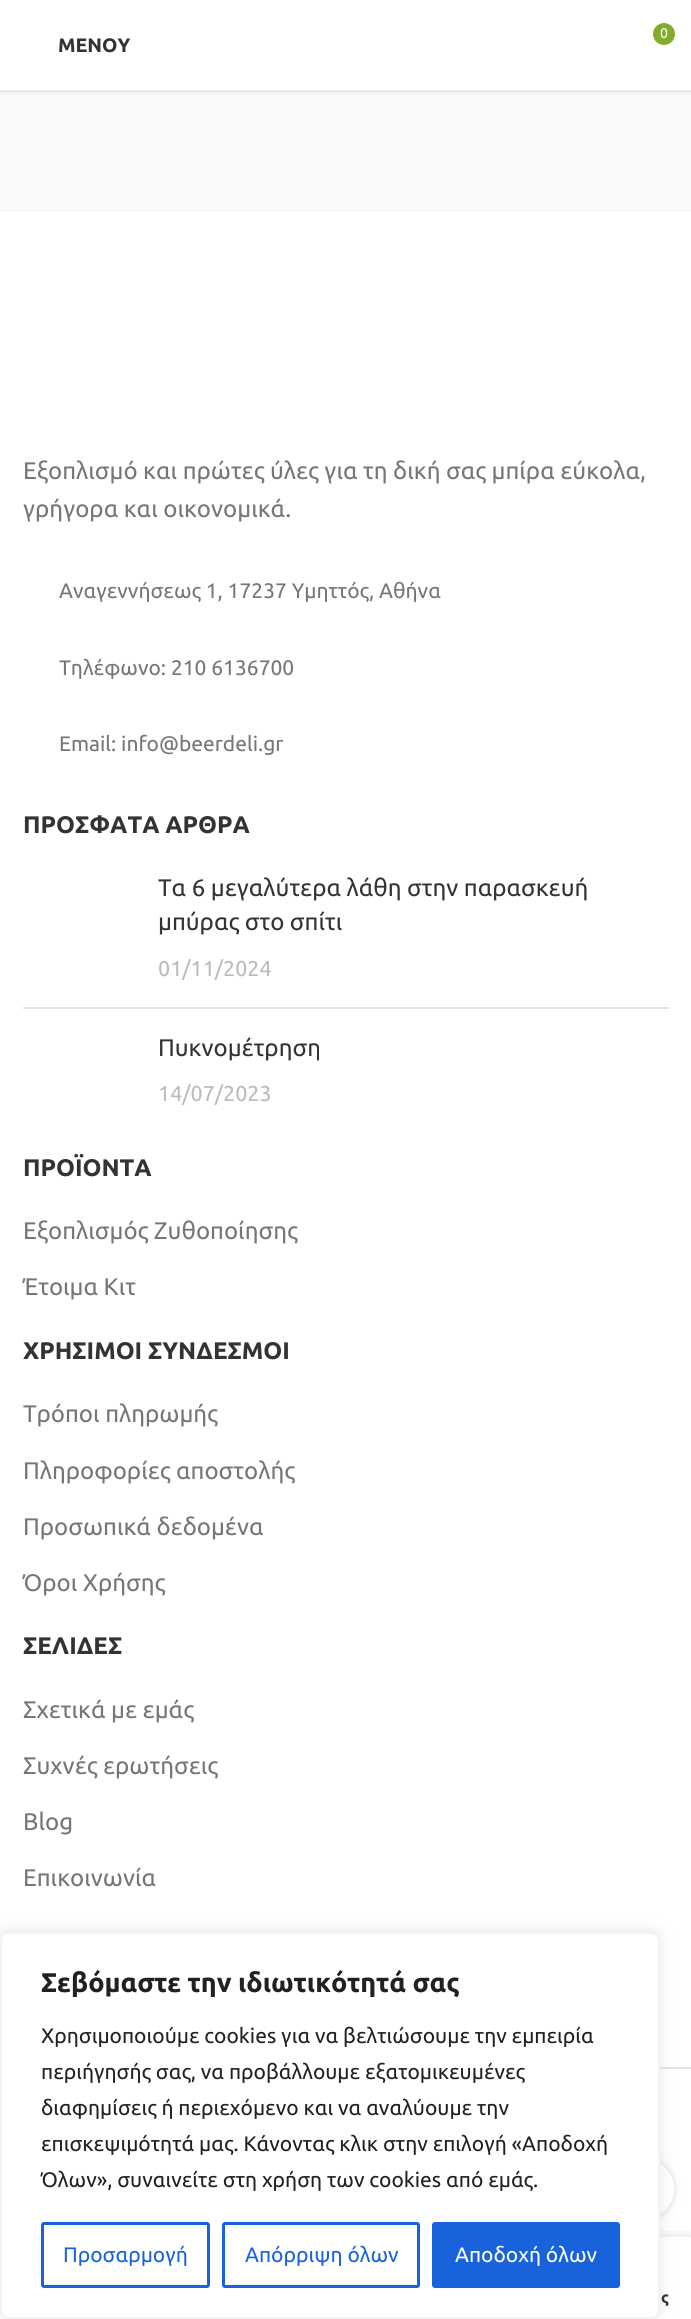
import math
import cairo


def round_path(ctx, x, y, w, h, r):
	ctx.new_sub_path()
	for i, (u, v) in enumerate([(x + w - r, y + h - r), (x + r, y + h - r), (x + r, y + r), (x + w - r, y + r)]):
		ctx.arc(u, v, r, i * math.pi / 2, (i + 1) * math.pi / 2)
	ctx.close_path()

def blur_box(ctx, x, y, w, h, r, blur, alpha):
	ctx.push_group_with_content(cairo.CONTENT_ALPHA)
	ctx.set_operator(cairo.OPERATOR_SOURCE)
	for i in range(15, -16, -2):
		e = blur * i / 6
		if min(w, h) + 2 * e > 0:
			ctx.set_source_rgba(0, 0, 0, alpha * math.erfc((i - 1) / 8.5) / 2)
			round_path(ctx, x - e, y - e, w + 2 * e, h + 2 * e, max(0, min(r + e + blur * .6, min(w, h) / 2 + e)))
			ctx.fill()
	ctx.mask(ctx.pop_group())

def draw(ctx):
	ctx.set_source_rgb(1, 1, 1)
	ctx.paint()
	ctx.set_source_rgb(0.976, 0.976, 0.976)
	ctx.rectangle(0, 90, 691, 122)
	ctx.fill()
	ctx.set_source_rgb(0, 0, 0)
	blur_box(ctx, 0, 2, 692, 90, 0, 2, 0.1)
	ctx.set_source_rgb(1, 1, 1)
	ctx.rectangle(0, 0, 691, 90)
	ctx.fill()
	ctx.set_source_rgb(0.514, 0.675, 0.169)
	ctx.arc(664, 34, 11, 0, 2 * math.pi)
	ctx.fill()
	ctx.select_font_face('Ubuntu')
	ctx.set_font_size(14)
	ctx.set_source_rgb(1, 1, 1)
	ctx.move_to(660, 38)
	ctx.show_text('0')
	ctx.select_font_face('Ubuntu', cairo.FONT_SLANT_NORMAL, cairo.FONT_WEIGHT_BOLD)
	ctx.set_font_size(19.5)
	ctx.set_source_rgb(0.2, 0.2, 0.2)
	ctx.move_to(58, 52)
	ctx.show_text('ΜΕΝΟΥ')
	ctx.select_font_face('Ubuntu')
	ctx.set_font_size(24)
	ctx.set_source_rgb(0.463, 0.463, 0.463)
	ctx.move_to(23, 479)
	ctx.show_text('Εξοπλισμό και πρώτες ύλες για τη δική σας μπίρα εύκολα,')
	ctx.move_to(23, 517)
	ctx.show_text('γρήγορα και οικονομικά.')
	ctx.set_font_size(21)
	for x, y, s in [
		(59, 598, 'Αναγεννήσεως 1, 17237 Υμηττός, Αθήνα'),
		(59, 675, 'Τηλέφωνο: 210 6136700'),
		(59, 751, 'Email: info@beerdeli.gr'),
	]:
		ctx.move_to(x, y)
		ctx.show_text(s)
	ctx.select_font_face('Ubuntu', cairo.FONT_SLANT_NORMAL, cairo.FONT_WEIGHT_BOLD)
	ctx.set_font_size(24)
	ctx.set_source_rgb(0.2, 0.2, 0.2)
	ctx.move_to(23, 833)
	ctx.show_text('ΠΡΟΣΦΑΤΑ ΑΡΘΡΑ')
	ctx.set_source_rgb(0.894, 0.894, 0.894)
	ctx.rectangle(23, 1007, 646, 2)
	ctx.fill()
	ctx.select_font_face('Ubuntu')
	ctx.set_source_rgb(0.2, 0.2, 0.2)
	ctx.move_to(158, 896)
	ctx.show_text('Τα 6 μεγαλύτερα λάθη στην παρασκευή')
	ctx.move_to(158, 930)
	ctx.show_text('μπύρας στο σπίτι')
	ctx.set_font_size(21.5)
	ctx.set_source_rgb(0.733, 0.733, 0.733)
	ctx.move_to(158, 976)
	ctx.show_text('01/11/2024')
	ctx.set_font_size(24)
	ctx.set_source_rgb(0.2, 0.2, 0.2)
	ctx.move_to(158, 1056)
	ctx.show_text('Πυκνομέτρηση')
	ctx.set_font_size(21.5)
	ctx.set_source_rgb(0.733, 0.733, 0.733)
	ctx.move_to(158, 1101)
	ctx.show_text('14/07/2023')
	ctx.select_font_face('Ubuntu', cairo.FONT_SLANT_NORMAL, cairo.FONT_WEIGHT_BOLD)
	ctx.set_font_size(24)
	ctx.set_source_rgb(0.2, 0.2, 0.2)
	ctx.move_to(23, 1176)
	ctx.show_text('ΠΡΟΪΟΝΤΑ')
	ctx.select_font_face('Ubuntu')
	ctx.set_source_rgb(0.463, 0.463, 0.463)
	ctx.move_to(23, 1239)
	ctx.show_text('Εξοπλισμός Ζυθοποίησης')
	ctx.move_to(23, 1295)
	ctx.show_text('Έτοιμα Κιτ')
	ctx.select_font_face('Ubuntu', cairo.FONT_SLANT_NORMAL, cairo.FONT_WEIGHT_BOLD)
	ctx.set_source_rgb(0.2, 0.2, 0.2)
	ctx.move_to(23, 1359)
	ctx.show_text('ΧΡΗΣΙΜΟΙ ΣΥΝΔΕΣΜΟΙ')
	ctx.select_font_face('Ubuntu')
	ctx.set_source_rgb(0.463, 0.463, 0.463)
	for x, y, s in [
		(23, 1422, 'Τρόποι πληρωμής'),
		(23, 1479, 'Πληροφορίες αποστολής'),
		(23, 1535, 'Προσωπικά δεδομένα'),
		(23, 1591, 'Όροι Χρήσης'),
	]:
		ctx.move_to(x, y)
		ctx.show_text(s)
	ctx.select_font_face('Ubuntu', cairo.FONT_SLANT_NORMAL, cairo.FONT_WEIGHT_BOLD)
	ctx.set_source_rgb(0.2, 0.2, 0.2)
	ctx.move_to(23, 1654)
	ctx.show_text('ΣΕΛΙΔΕΣ')
	ctx.select_font_face('Ubuntu')
	ctx.set_source_rgb(0.463, 0.463, 0.463)
	for x, y, s in [
		(23, 1718, 'Σχετικά με εμάς'),
		(23, 1774, 'Συχνές ερωτήσεις'),
		(23, 1830, 'Blog'),
		(23, 1886, 'Επικοινωνία'),
	]:
		ctx.move_to(x, y)
		ctx.show_text(s)
	ctx.set_source_rgb(0.894, 0.894, 0.894)
	ctx.rectangle(660, 2067, 31, 2)
	ctx.fill()
	ctx.save()
	ctx.set_fill_rule(cairo.FILL_RULE_EVEN_ODD)
	ctx.new_path()
	ctx.move_to(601, 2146)
	ctx.line_to(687, 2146)
	ctx.line_to(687, 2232)
	ctx.line_to(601, 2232)
	ctx.close_path()
	ctx.move_to(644, 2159)
	ctx.curve_to(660.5, 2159, 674, 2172.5, 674, 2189)
	ctx.curve_to(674, 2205.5, 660.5, 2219, 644, 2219)
	ctx.curve_to(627.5, 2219, 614, 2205.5, 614, 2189)
	ctx.curve_to(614, 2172.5, 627.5, 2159, 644, 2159)
	ctx.close_path()
	ctx.clip()
	ctx.set_source_rgb(0, 0, 0)
	blur_box(ctx, 614, 2159, 60, 60, 30, 4, 0.17)
	ctx.restore()
	ctx.set_source_rgba(1, 1, 1, 0.9)
	ctx.arc(644, 2189, 30, 0, 2 * math.pi)
	ctx.fill()
	ctx.set_source_rgb(0.675, 0.671, 0.671)
	blur_box(ctx, 0, 1931, 660, 387, 9, 7.5, 0.3)
	ctx.save()
	ctx.rectangle(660, 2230, 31, 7)
	ctx.clip()
	ctx.set_source_rgb(0, 0, 0)
	blur_box(ctx, 0, 2237, 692, 82, 0, 7, 0.12)
	ctx.restore()
	ctx.set_source_rgb(1, 1, 1)
	round_path(ctx, 1, 1933, 658, 385, 8)
	ctx.fill_preserve()
	ctx.set_source_rgb(0.957, 0.957, 0.957)
	ctx.stroke()
	ctx.select_font_face('Ubuntu', cairo.FONT_SLANT_NORMAL, cairo.FONT_WEIGHT_BOLD)
	ctx.set_font_size(27)
	ctx.set_source_rgb(0.129, 0.129, 0.129)
	ctx.move_to(41, 1992)
	ctx.show_text('Σεβόμαστε την ιδιωτικότητά σας')
	ctx.select_font_face('Ubuntu')
	ctx.set_font_size(21)
	for x, y, s in [
		(41, 2043, 'Χρησιμοποιούμε cookies για να βελτιώσουμε την εμπειρία'),
		(41, 2079, 'περιήγησής σας, να προβάλλουμε εξατομικευμένες'),
		(41, 2115, 'διαφημίσεις ή περιεχόμενο και να αναλύουμε την'),
		(41, 2151, 'επισκεψιμότητά μας. Κάνοντας κλικ στην επιλογή «Αποδοχή'),
		(41, 2187, 'Όλων», συναινείτε στη χρήση των cookies από εμάς.'),
	]:
		ctx.move_to(x, y)
		ctx.show_text(s)
	round_path(ctx, 42.5, 2223.5, 166, 63, 1.5)
	ctx.set_source_rgb(0.094, 0.388, 0.863)
	ctx.set_line_width(3)
	ctx.stroke()
	ctx.move_to(63, 2262)
	ctx.show_text('Προσαρμογή')
	round_path(ctx, 223.5, 2223.5, 195, 63, 1.5)
	ctx.stroke()
	ctx.move_to(245, 2262)
	ctx.show_text('Απόρριψη όλων')
	round_path(ctx, 433.5, 2223.5, 185, 63, 1.5)
	ctx.fill_preserve()
	ctx.stroke()
	ctx.set_source_rgb(1, 1, 1)
	ctx.move_to(455, 2262)
	ctx.show_text('Αποδοχή όλων')
	ctx.select_font_face('Ubuntu', cairo.FONT_SLANT_NORMAL, cairo.FONT_WEIGHT_BOLD)
	ctx.set_font_size(16)
	ctx.set_source_rgb(0.2, 0.2, 0.2)
	ctx.move_to(661, 2303)
	ctx.show_text('ς')


surface = cairo.ImageSurface(cairo.FORMAT_RGB24, 691, 2319)
ctx = cairo.Context(surface)
options = cairo.FontOptions()
options.set_hint_metrics(cairo.HINT_METRICS_OFF)
options.set_hint_style(cairo.HINT_STYLE_NONE)
ctx.set_font_options(options)
ctx.set_miter_limit(4)
draw(ctx)
surface.write_to_png('image.png')
